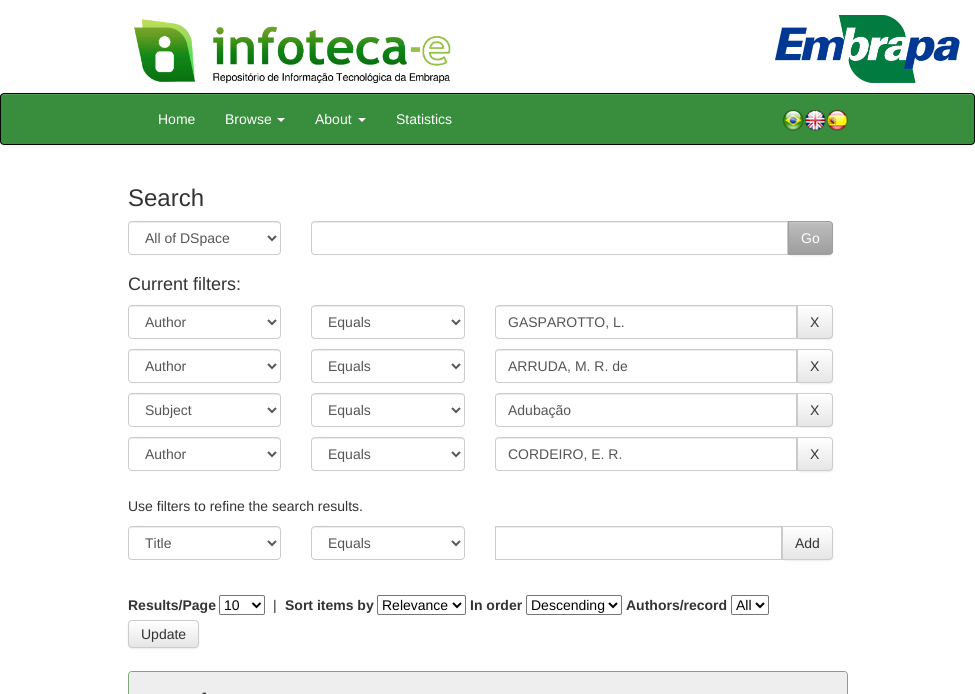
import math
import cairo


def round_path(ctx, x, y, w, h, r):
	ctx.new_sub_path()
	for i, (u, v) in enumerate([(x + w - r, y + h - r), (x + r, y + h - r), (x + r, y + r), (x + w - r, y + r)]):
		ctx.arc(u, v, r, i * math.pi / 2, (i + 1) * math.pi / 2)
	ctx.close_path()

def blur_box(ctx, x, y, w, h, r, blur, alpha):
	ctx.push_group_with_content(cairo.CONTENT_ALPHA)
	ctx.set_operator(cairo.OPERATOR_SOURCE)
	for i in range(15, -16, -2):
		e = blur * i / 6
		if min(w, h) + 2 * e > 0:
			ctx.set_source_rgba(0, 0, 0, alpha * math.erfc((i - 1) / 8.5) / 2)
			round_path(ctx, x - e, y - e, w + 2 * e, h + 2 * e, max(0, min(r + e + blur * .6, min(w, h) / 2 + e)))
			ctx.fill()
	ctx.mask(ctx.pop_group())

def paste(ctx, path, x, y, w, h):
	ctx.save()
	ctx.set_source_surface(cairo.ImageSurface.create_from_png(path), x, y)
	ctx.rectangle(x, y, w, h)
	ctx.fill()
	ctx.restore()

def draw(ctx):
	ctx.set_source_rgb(1, 1, 1)
	ctx.paint()
	paste(ctx, 'media/1.png', 134, 19, 317, 65)
	paste(ctx, 'media/2.png', 775, 15, 185, 68)
	ctx.set_source_rgb(0, 0, 0)
	blur_box(ctx, 0, 94, 975, 52, 4, 2.5, 0.07)
	ctx.save()
	round_path(ctx, 0, 93, 975, 52, 4)
	ctx.clip()
	ctx.set_source_rgb(0.22, 0.557, 0.235)
	ctx.rectangle(0, 94, 975, 50)
	ctx.fill()
	ctx.restore()
	ctx.set_source_rgb(0.337, 0.624, 0.349)
	ctx.new_path()
	ctx.move_to(4, 95)
	ctx.line_to(971, 95)
	ctx.curve_to(973, 95, 974, 96, 974, 98)
	ctx.curve_to(974, 96, 973, 94, 971, 94)
	ctx.line_to(4, 94)
	ctx.curve_to(2, 94, 1, 96, 1, 98)
	ctx.curve_to(1, 96, 2, 95, 4, 95)
	ctx.close_path()
	ctx.fill()
	round_path(ctx, 0.5, 93.5, 974, 51, 3.5)
	ctx.set_source_rgb(0.031, 0.031, 0.031)
	ctx.set_line_width(1)
	ctx.stroke()
	ctx.select_font_face('Liberation Sans')
	ctx.set_font_size(14)
	ctx.set_source_rgb(1, 1, 1)
	ctx.move_to(158, 124)
	ctx.show_text('Home')
	ctx.move_to(225, 124)
	ctx.show_text('Browse')
	ctx.new_path()
	ctx.move_to(277, 118)
	ctx.line_to(285, 118)
	ctx.line_to(281, 122)
	ctx.close_path()
	ctx.fill()
	ctx.move_to(315, 124)
	ctx.show_text('About')
	ctx.new_path()
	ctx.move_to(358, 118)
	ctx.line_to(366, 118)
	ctx.line_to(362, 122)
	ctx.close_path()
	ctx.fill()
	ctx.move_to(396, 124)
	ctx.show_text('Statistics')
	paste(ctx, 'media/3.png', 782, 109, 22, 22)
	paste(ctx, 'media/4.png', 804, 109, 22, 22)
	paste(ctx, 'media/5.png', 826, 109, 22, 22)
	ctx.set_font_size(24)
	ctx.set_source_rgb(0.2, 0.2, 0.2)
	ctx.move_to(128, 206)
	ctx.show_text('Search')
	ctx.set_source_rgb(0.925, 0.925, 0.925)
	ctx.new_path()
	ctx.move_to(132, 223)
	ctx.line_to(277, 223)
	ctx.curve_to(279, 223, 280, 224, 280, 226)
	ctx.curve_to(280, 224, 280, 223, 278, 222)
	ctx.line_to(156, 222)
	ctx.curve_to(149, 222, 129, 217, 129, 226)
	ctx.curve_to(129, 224, 130, 223, 132, 223)
	ctx.close_path()
	ctx.fill()
	round_path(ctx, 128.5, 221.5, 152, 33, 3.5)
	ctx.set_source_rgb(0.8, 0.8, 0.8)
	ctx.stroke()
	ctx.new_path()
	ctx.move_to(268, 236)
	ctx.line_to(272, 240)
	ctx.line_to(276, 236)
	ctx.set_source_rgb(0.333, 0.333, 0.333)
	ctx.set_line_width(2)
	ctx.stroke()
	ctx.set_font_size(14)
	ctx.move_to(145, 243)
	ctx.show_text('All of DSpace')
	ctx.set_source_rgb(0.925, 0.925, 0.925)
	ctx.new_path()
	ctx.move_to(315, 223)
	ctx.line_to(787, 223)
	ctx.line_to(787, 222)
	ctx.line_to(315, 222)
	ctx.curve_to(313, 222, 312, 224, 312, 226)
	ctx.curve_to(312, 224, 313, 223, 315, 223)
	ctx.close_path()
	ctx.fill()
	ctx.new_path()
	ctx.move_to(315, 221.5)
	ctx.line_to(787.5, 221.5)
	ctx.line_to(787.5, 254.5)
	ctx.line_to(315, 254.5)
	ctx.curve_to(313, 254.5, 311.5, 253, 311.5, 251)
	ctx.line_to(311.5, 225)
	ctx.curve_to(311.5, 223, 313, 221.5, 315, 221.5)
	ctx.close_path()
	ctx.set_source_rgb(0.8, 0.8, 0.8)
	ctx.set_line_width(1)
	ctx.stroke()
	ctx.set_source_rgb(0, 0, 0)
	blur_box(ctx, 788, 222, 45, 34, 4, 0.5, 0.07)
	ctx.save()
	ctx.new_path()
	ctx.move_to(788, 221)
	ctx.line_to(829, 221)
	ctx.curve_to(831, 221, 833, 223, 833, 225)
	ctx.line_to(833, 251)
	ctx.curve_to(833, 253, 831, 255, 829, 255)
	ctx.line_to(788, 255)
	ctx.close_path()
	ctx.clip()
	gradient = cairo.LinearGradient(811, 222, 811, 254)
	gradient.add_color_stop_rgba(0, 0.741, 0.741, 0.741, 1)
	gradient.add_color_stop_rgba(1, 0.62, 0.62, 0.62, 1)
	ctx.set_source(gradient)
	ctx.rectangle(789, 222, 44, 32)
	ctx.fill()
	ctx.restore()
	ctx.set_source_rgb(0.78, 0.78, 0.78)
	ctx.new_path()
	ctx.move_to(789, 223)
	ctx.line_to(829, 223)
	ctx.curve_to(831, 223, 832, 224, 832, 226)
	ctx.line_to(832, 225)
	ctx.curve_to(832, 223, 831, 222, 829, 222)
	ctx.line_to(789, 222)
	ctx.close_path()
	ctx.fill()
	ctx.new_path()
	ctx.move_to(788.5, 221.5)
	ctx.line_to(829, 221.5)
	ctx.curve_to(831, 221.5, 832.5, 223, 832.5, 225)
	ctx.line_to(832.5, 251)
	ctx.curve_to(832.5, 253, 831, 254.5, 829, 254.5)
	ctx.line_to(788.5, 254.5)
	ctx.close_path()
	ctx.set_source_rgb(0.62, 0.62, 0.62)
	ctx.stroke()
	ctx.set_source_rgb(1, 1, 1)
	ctx.move_to(801, 243)
	ctx.show_text('Go')
	ctx.set_font_size(18)
	ctx.set_source_rgb(0.2, 0.2, 0.2)
	ctx.move_to(128, 290)
	ctx.show_text('Current filters:')
	ctx.set_source_rgb(0.925, 0.925, 0.925)
	ctx.new_path()
	ctx.move_to(132, 307)
	ctx.line_to(277, 307)
	ctx.curve_to(279, 307, 280, 308, 280, 310)
	ctx.curve_to(280, 308, 280, 307, 278, 306)
	ctx.line_to(156, 306)
	ctx.curve_to(149, 306, 129, 301, 129, 310)
	ctx.curve_to(129, 308, 130, 307, 132, 307)
	ctx.close_path()
	ctx.fill()
	round_path(ctx, 128.5, 305.5, 152, 33, 3.5)
	ctx.set_source_rgb(0.8, 0.8, 0.8)
	ctx.stroke()
	ctx.new_path()
	ctx.move_to(268, 320)
	ctx.line_to(272, 324)
	ctx.line_to(276, 320)
	ctx.set_source_rgb(0.333, 0.333, 0.333)
	ctx.set_line_width(2)
	ctx.stroke()
	ctx.set_font_size(14)
	ctx.move_to(145, 327)
	ctx.show_text('Author')
	ctx.set_source_rgb(0.925, 0.925, 0.925)
	ctx.new_path()
	ctx.move_to(315, 307)
	ctx.line_to(461, 307)
	ctx.curve_to(463, 307, 464, 308, 464, 310)
	ctx.curve_to(464, 308, 464, 307, 462, 306)
	ctx.line_to(339, 306)
	ctx.curve_to(332, 306, 312, 301, 312, 310)
	ctx.curve_to(312, 308, 313, 307, 315, 307)
	ctx.close_path()
	ctx.fill()
	round_path(ctx, 311.5, 305.5, 153, 33, 3.5)
	ctx.set_source_rgb(0.8, 0.8, 0.8)
	ctx.set_line_width(1)
	ctx.stroke()
	ctx.new_path()
	ctx.move_to(452, 320)
	ctx.line_to(456, 324)
	ctx.line_to(460, 320)
	ctx.set_source_rgb(0.333, 0.333, 0.333)
	ctx.set_line_width(2)
	ctx.stroke()
	ctx.move_to(328, 327)
	ctx.show_text('Equals')
	ctx.set_source_rgb(0.925, 0.925, 0.925)
	ctx.new_path()
	ctx.move_to(499, 307)
	ctx.line_to(796, 307)
	ctx.line_to(796, 306)
	ctx.line_to(499, 306)
	ctx.curve_to(497, 306, 496, 308, 496, 310)
	ctx.curve_to(496, 308, 497, 307, 499, 307)
	ctx.close_path()
	ctx.fill()
	ctx.new_path()
	ctx.move_to(499, 305.5)
	ctx.line_to(796.5, 305.5)
	ctx.line_to(796.5, 338.5)
	ctx.line_to(499, 338.5)
	ctx.curve_to(497, 338.5, 495.5, 337, 495.5, 335)
	ctx.line_to(495.5, 309)
	ctx.curve_to(495.5, 307, 497, 305.5, 499, 305.5)
	ctx.close_path()
	ctx.set_source_rgb(0.8, 0.8, 0.8)
	ctx.set_line_width(1)
	ctx.stroke()
	ctx.set_source_rgb(0.333, 0.333, 0.333)
	ctx.move_to(508, 327)
	ctx.show_text('GASPAROTTO, L.')
	ctx.set_source_rgb(0, 0, 0)
	blur_box(ctx, 797, 306, 36, 34, 4, 0.5, 0.07)
	ctx.save()
	ctx.new_path()
	ctx.move_to(797, 305)
	ctx.line_to(829, 305)
	ctx.curve_to(831, 305, 833, 307, 833, 309)
	ctx.line_to(833, 335)
	ctx.curve_to(833, 337, 831, 339, 829, 339)
	ctx.line_to(797, 339)
	ctx.close_path()
	ctx.clip()
	gradient = cairo.LinearGradient(815, 306, 815, 338)
	gradient.add_color_stop_rgba(0, 1, 1, 1, 1)
	gradient.add_color_stop_rgba(1, 0.902, 0.902, 0.902, 1)
	ctx.set_source(gradient)
	ctx.rectangle(798, 306, 35, 32)
	ctx.fill()
	ctx.restore()
	ctx.new_path()
	ctx.move_to(797.5, 305.5)
	ctx.line_to(829, 305.5)
	ctx.curve_to(831, 305.5, 832.5, 307, 832.5, 309)
	ctx.line_to(832.5, 335)
	ctx.curve_to(832.5, 337, 831, 338.5, 829, 338.5)
	ctx.line_to(797.5, 338.5)
	ctx.close_path()
	ctx.set_source_rgb(0.8, 0.8, 0.8)
	ctx.stroke()
	ctx.set_source_rgb(0.2, 0.2, 0.2)
	ctx.move_to(810, 327)
	ctx.show_text('X')
	ctx.set_source_rgb(0.925, 0.925, 0.925)
	ctx.new_path()
	ctx.move_to(132, 351)
	ctx.line_to(277, 351)
	ctx.curve_to(279, 351, 280, 352, 280, 354)
	ctx.curve_to(280, 352, 280, 351, 278, 350)
	ctx.line_to(156, 350)
	ctx.curve_to(149, 350, 129, 345, 129, 354)
	ctx.curve_to(129, 352, 130, 351, 132, 351)
	ctx.close_path()
	ctx.fill()
	round_path(ctx, 128.5, 349.5, 152, 33, 3.5)
	ctx.set_source_rgb(0.8, 0.8, 0.8)
	ctx.stroke()
	ctx.new_path()
	ctx.move_to(268, 364)
	ctx.line_to(272, 368)
	ctx.line_to(276, 364)
	ctx.set_source_rgb(0.333, 0.333, 0.333)
	ctx.set_line_width(2)
	ctx.stroke()
	ctx.move_to(145, 371)
	ctx.show_text('Author')
	ctx.set_source_rgb(0.925, 0.925, 0.925)
	ctx.new_path()
	ctx.move_to(315, 351)
	ctx.line_to(461, 351)
	ctx.curve_to(463, 351, 464, 352, 464, 354)
	ctx.curve_to(464, 352, 464, 351, 462, 350)
	ctx.line_to(339, 350)
	ctx.curve_to(332, 350, 312, 345, 312, 354)
	ctx.curve_to(312, 352, 313, 351, 315, 351)
	ctx.close_path()
	ctx.fill()
	round_path(ctx, 311.5, 349.5, 153, 33, 3.5)
	ctx.set_source_rgb(0.8, 0.8, 0.8)
	ctx.set_line_width(1)
	ctx.stroke()
	ctx.new_path()
	ctx.move_to(452, 364)
	ctx.line_to(456, 368)
	ctx.line_to(460, 364)
	ctx.set_source_rgb(0.333, 0.333, 0.333)
	ctx.set_line_width(2)
	ctx.stroke()
	ctx.move_to(328, 371)
	ctx.show_text('Equals')
	ctx.set_source_rgb(0.925, 0.925, 0.925)
	ctx.new_path()
	ctx.move_to(499, 351)
	ctx.line_to(796, 351)
	ctx.line_to(796, 350)
	ctx.line_to(499, 350)
	ctx.curve_to(497, 350, 496, 352, 496, 354)
	ctx.curve_to(496, 352, 497, 351, 499, 351)
	ctx.close_path()
	ctx.fill()
	ctx.new_path()
	ctx.move_to(499, 349.5)
	ctx.line_to(796.5, 349.5)
	ctx.line_to(796.5, 382.5)
	ctx.line_to(499, 382.5)
	ctx.curve_to(497, 382.5, 495.5, 381, 495.5, 379)
	ctx.line_to(495.5, 353)
	ctx.curve_to(495.5, 351, 497, 349.5, 499, 349.5)
	ctx.close_path()
	ctx.set_source_rgb(0.8, 0.8, 0.8)
	ctx.set_line_width(1)
	ctx.stroke()
	ctx.set_source_rgb(0.333, 0.333, 0.333)
	ctx.move_to(508, 371)
	ctx.show_text('ARRUDA, M. R. de')
	ctx.set_source_rgb(0, 0, 0)
	blur_box(ctx, 797, 350, 36, 34, 4, 0.5, 0.07)
	ctx.save()
	ctx.new_path()
	ctx.move_to(797, 349)
	ctx.line_to(829, 349)
	ctx.curve_to(831, 349, 833, 351, 833, 353)
	ctx.line_to(833, 379)
	ctx.curve_to(833, 381, 831, 383, 829, 383)
	ctx.line_to(797, 383)
	ctx.close_path()
	ctx.clip()
	gradient = cairo.LinearGradient(815, 350, 815, 382)
	gradient.add_color_stop_rgba(0, 1, 1, 1, 1)
	gradient.add_color_stop_rgba(1, 0.902, 0.902, 0.902, 1)
	ctx.set_source(gradient)
	ctx.rectangle(798, 350, 35, 32)
	ctx.fill()
	ctx.restore()
	ctx.new_path()
	ctx.move_to(797.5, 349.5)
	ctx.line_to(829, 349.5)
	ctx.curve_to(831, 349.5, 832.5, 351, 832.5, 353)
	ctx.line_to(832.5, 379)
	ctx.curve_to(832.5, 381, 831, 382.5, 829, 382.5)
	ctx.line_to(797.5, 382.5)
	ctx.close_path()
	ctx.set_source_rgb(0.8, 0.8, 0.8)
	ctx.stroke()
	ctx.set_source_rgb(0.2, 0.2, 0.2)
	ctx.move_to(810, 371)
	ctx.show_text('X')
	ctx.set_source_rgb(0.925, 0.925, 0.925)
	ctx.new_path()
	ctx.move_to(132, 395)
	ctx.line_to(277, 395)
	ctx.curve_to(279, 395, 280, 396, 280, 398)
	ctx.curve_to(280, 396, 280, 395, 278, 394)
	ctx.line_to(156, 394)
	ctx.curve_to(149, 394, 129, 389, 129, 398)
	ctx.curve_to(129, 396, 130, 395, 132, 395)
	ctx.close_path()
	ctx.fill()
	round_path(ctx, 128.5, 393.5, 152, 33, 3.5)
	ctx.set_source_rgb(0.8, 0.8, 0.8)
	ctx.stroke()
	ctx.new_path()
	ctx.move_to(268, 408)
	ctx.line_to(272, 412)
	ctx.line_to(276, 408)
	ctx.set_source_rgb(0.333, 0.333, 0.333)
	ctx.set_line_width(2)
	ctx.stroke()
	ctx.move_to(145, 415)
	ctx.show_text('Subject')
	ctx.set_source_rgb(0.925, 0.925, 0.925)
	ctx.new_path()
	ctx.move_to(315, 395)
	ctx.line_to(461, 395)
	ctx.curve_to(463, 395, 464, 396, 464, 398)
	ctx.curve_to(464, 396, 464, 395, 462, 394)
	ctx.line_to(339, 394)
	ctx.curve_to(332, 394, 312, 389, 312, 398)
	ctx.curve_to(312, 396, 313, 395, 315, 395)
	ctx.close_path()
	ctx.fill()
	round_path(ctx, 311.5, 393.5, 153, 33, 3.5)
	ctx.set_source_rgb(0.8, 0.8, 0.8)
	ctx.set_line_width(1)
	ctx.stroke()
	ctx.new_path()
	ctx.move_to(452, 408)
	ctx.line_to(456, 412)
	ctx.line_to(460, 408)
	ctx.set_source_rgb(0.333, 0.333, 0.333)
	ctx.set_line_width(2)
	ctx.stroke()
	ctx.move_to(328, 415)
	ctx.show_text('Equals')
	ctx.set_source_rgb(0.925, 0.925, 0.925)
	ctx.new_path()
	ctx.move_to(499, 395)
	ctx.line_to(796, 395)
	ctx.line_to(796, 394)
	ctx.line_to(499, 394)
	ctx.curve_to(497, 394, 496, 396, 496, 398)
	ctx.curve_to(496, 396, 497, 395, 499, 395)
	ctx.close_path()
	ctx.fill()
	ctx.new_path()
	ctx.move_to(499, 393.5)
	ctx.line_to(796.5, 393.5)
	ctx.line_to(796.5, 426.5)
	ctx.line_to(499, 426.5)
	ctx.curve_to(497, 426.5, 495.5, 425, 495.5, 423)
	ctx.line_to(495.5, 397)
	ctx.curve_to(495.5, 395, 497, 393.5, 499, 393.5)
	ctx.close_path()
	ctx.set_source_rgb(0.8, 0.8, 0.8)
	ctx.set_line_width(1)
	ctx.stroke()
	ctx.set_source_rgb(0.333, 0.333, 0.333)
	ctx.move_to(508, 415)
	ctx.show_text('Adubação')
	ctx.set_source_rgb(0, 0, 0)
	blur_box(ctx, 797, 394, 36, 34, 4, 0.5, 0.07)
	ctx.save()
	ctx.new_path()
	ctx.move_to(797, 393)
	ctx.line_to(829, 393)
	ctx.curve_to(831, 393, 833, 395, 833, 397)
	ctx.line_to(833, 423)
	ctx.curve_to(833, 425, 831, 427, 829, 427)
	ctx.line_to(797, 427)
	ctx.close_path()
	ctx.clip()
	gradient = cairo.LinearGradient(815, 394, 815, 426)
	gradient.add_color_stop_rgba(0, 1, 1, 1, 1)
	gradient.add_color_stop_rgba(1, 0.902, 0.902, 0.902, 1)
	ctx.set_source(gradient)
	ctx.rectangle(798, 394, 35, 32)
	ctx.fill()
	ctx.restore()
	ctx.new_path()
	ctx.move_to(797.5, 393.5)
	ctx.line_to(829, 393.5)
	ctx.curve_to(831, 393.5, 832.5, 395, 832.5, 397)
	ctx.line_to(832.5, 423)
	ctx.curve_to(832.5, 425, 831, 426.5, 829, 426.5)
	ctx.line_to(797.5, 426.5)
	ctx.close_path()
	ctx.set_source_rgb(0.8, 0.8, 0.8)
	ctx.stroke()
	ctx.set_source_rgb(0.2, 0.2, 0.2)
	ctx.move_to(810, 415)
	ctx.show_text('X')
	ctx.set_source_rgb(0.925, 0.925, 0.925)
	ctx.new_path()
	ctx.move_to(132, 439)
	ctx.line_to(277, 439)
	ctx.curve_to(279, 439, 280, 440, 280, 442)
	ctx.curve_to(280, 440, 280, 439, 278, 438)
	ctx.line_to(156, 438)
	ctx.curve_to(149, 438, 129, 433, 129, 442)
	ctx.curve_to(129, 440, 130, 439, 132, 439)
	ctx.close_path()
	ctx.fill()
	round_path(ctx, 128.5, 437.5, 152, 33, 3.5)
	ctx.set_source_rgb(0.8, 0.8, 0.8)
	ctx.stroke()
	ctx.new_path()
	ctx.move_to(268, 452)
	ctx.line_to(272, 456)
	ctx.line_to(276, 452)
	ctx.set_source_rgb(0.333, 0.333, 0.333)
	ctx.set_line_width(2)
	ctx.stroke()
	ctx.move_to(145, 459)
	ctx.show_text('Author')
	ctx.set_source_rgb(0.925, 0.925, 0.925)
	ctx.new_path()
	ctx.move_to(315, 439)
	ctx.line_to(461, 439)
	ctx.curve_to(463, 439, 464, 440, 464, 442)
	ctx.curve_to(464, 440, 464, 439, 462, 438)
	ctx.line_to(339, 438)
	ctx.curve_to(332, 438, 312, 433, 312, 442)
	ctx.curve_to(312, 440, 313, 439, 315, 439)
	ctx.close_path()
	ctx.fill()
	round_path(ctx, 311.5, 437.5, 153, 33, 3.5)
	ctx.set_source_rgb(0.8, 0.8, 0.8)
	ctx.set_line_width(1)
	ctx.stroke()
	ctx.new_path()
	ctx.move_to(452, 452)
	ctx.line_to(456, 456)
	ctx.line_to(460, 452)
	ctx.set_source_rgb(0.333, 0.333, 0.333)
	ctx.set_line_width(2)
	ctx.stroke()
	ctx.move_to(328, 459)
	ctx.show_text('Equals')
	ctx.set_source_rgb(0.925, 0.925, 0.925)
	ctx.new_path()
	ctx.move_to(499, 439)
	ctx.line_to(796, 439)
	ctx.line_to(796, 438)
	ctx.line_to(499, 438)
	ctx.curve_to(497, 438, 496, 440, 496, 442)
	ctx.curve_to(496, 440, 497, 439, 499, 439)
	ctx.close_path()
	ctx.fill()
	ctx.new_path()
	ctx.move_to(499, 437.5)
	ctx.line_to(796.5, 437.5)
	ctx.line_to(796.5, 470.5)
	ctx.line_to(499, 470.5)
	ctx.curve_to(497, 470.5, 495.5, 469, 495.5, 467)
	ctx.line_to(495.5, 441)
	ctx.curve_to(495.5, 439, 497, 437.5, 499, 437.5)
	ctx.close_path()
	ctx.set_source_rgb(0.8, 0.8, 0.8)
	ctx.set_line_width(1)
	ctx.stroke()
	ctx.set_source_rgb(0.333, 0.333, 0.333)
	ctx.move_to(508, 459)
	ctx.show_text('CORDEIRO, E. R.')
	ctx.set_source_rgb(0, 0, 0)
	blur_box(ctx, 797, 438, 36, 34, 4, 0.5, 0.07)
	ctx.save()
	ctx.new_path()
	ctx.move_to(797, 437)
	ctx.line_to(829, 437)
	ctx.curve_to(831, 437, 833, 439, 833, 441)
	ctx.line_to(833, 467)
	ctx.curve_to(833, 469, 831, 471, 829, 471)
	ctx.line_to(797, 471)
	ctx.close_path()
	ctx.clip()
	gradient = cairo.LinearGradient(815, 438, 815, 470)
	gradient.add_color_stop_rgba(0, 1, 1, 1, 1)
	gradient.add_color_stop_rgba(1, 0.902, 0.902, 0.902, 1)
	ctx.set_source(gradient)
	ctx.rectangle(798, 438, 35, 32)
	ctx.fill()
	ctx.restore()
	ctx.new_path()
	ctx.move_to(797.5, 437.5)
	ctx.line_to(829, 437.5)
	ctx.curve_to(831, 437.5, 832.5, 439, 832.5, 441)
	ctx.line_to(832.5, 467)
	ctx.curve_to(832.5, 469, 831, 470.5, 829, 470.5)
	ctx.line_to(797.5, 470.5)
	ctx.close_path()
	ctx.set_source_rgb(0.8, 0.8, 0.8)
	ctx.stroke()
	ctx.set_source_rgb(0.2, 0.2, 0.2)
	ctx.move_to(810, 459)
	ctx.show_text('X')
	ctx.move_to(128, 511)
	ctx.show_text('Use filters to refine the search results.')
	ctx.set_source_rgb(0.925, 0.925, 0.925)
	ctx.new_path()
	ctx.move_to(132, 528)
	ctx.line_to(277, 528)
	ctx.curve_to(279, 528, 280, 529, 280, 531)
	ctx.curve_to(280, 529, 280, 528, 278, 527)
	ctx.line_to(156, 527)
	ctx.curve_to(149, 527, 129, 522, 129, 531)
	ctx.curve_to(129, 529, 130, 528, 132, 528)
	ctx.close_path()
	ctx.fill()
	round_path(ctx, 128.5, 526.5, 152, 33, 3.5)
	ctx.set_source_rgb(0.8, 0.8, 0.8)
	ctx.stroke()
	ctx.new_path()
	ctx.move_to(268, 541)
	ctx.line_to(272, 545)
	ctx.line_to(276, 541)
	ctx.set_source_rgb(0.333, 0.333, 0.333)
	ctx.set_line_width(2)
	ctx.stroke()
	ctx.move_to(145, 548)
	ctx.show_text('Title')
	ctx.set_source_rgb(0.925, 0.925, 0.925)
	ctx.new_path()
	ctx.move_to(315, 528)
	ctx.line_to(461, 528)
	ctx.curve_to(463, 528, 464, 529, 464, 531)
	ctx.curve_to(464, 529, 464, 528, 462, 527)
	ctx.line_to(339, 527)
	ctx.curve_to(332, 527, 312, 522, 312, 531)
	ctx.curve_to(312, 529, 313, 528, 315, 528)
	ctx.close_path()
	ctx.fill()
	round_path(ctx, 311.5, 526.5, 153, 33, 3.5)
	ctx.set_source_rgb(0.8, 0.8, 0.8)
	ctx.set_line_width(1)
	ctx.stroke()
	ctx.new_path()
	ctx.move_to(452, 541)
	ctx.line_to(456, 545)
	ctx.line_to(460, 541)
	ctx.set_source_rgb(0.333, 0.333, 0.333)
	ctx.set_line_width(2)
	ctx.stroke()
	ctx.move_to(328, 548)
	ctx.show_text('Equals')
	ctx.set_source_rgb(0.925, 0.925, 0.925)
	ctx.rectangle(496, 527, 285, 1)
	ctx.fill()
	ctx.rectangle(495.5, 526.5, 286, 33)
	ctx.set_source_rgb(0.8, 0.8, 0.8)
	ctx.set_line_width(1)
	ctx.stroke()
	ctx.set_source_rgb(0, 0, 0)
	blur_box(ctx, 782, 527, 51, 34, 4, 0.5, 0.07)
	ctx.save()
	ctx.new_path()
	ctx.move_to(782, 526)
	ctx.line_to(829, 526)
	ctx.curve_to(831, 526, 833, 528, 833, 530)
	ctx.line_to(833, 556)
	ctx.curve_to(833, 558, 831, 560, 829, 560)
	ctx.line_to(782, 560)
	ctx.close_path()
	ctx.clip()
	gradient = cairo.LinearGradient(808, 527, 808, 559)
	gradient.add_color_stop_rgba(0, 1, 1, 1, 1)
	gradient.add_color_stop_rgba(1, 0.902, 0.902, 0.902, 1)
	ctx.set_source(gradient)
	ctx.rectangle(783, 527, 50, 32)
	ctx.fill()
	ctx.restore()
	ctx.new_path()
	ctx.move_to(782.5, 526.5)
	ctx.line_to(829, 526.5)
	ctx.curve_to(831, 526.5, 832.5, 528, 832.5, 530)
	ctx.line_to(832.5, 556)
	ctx.curve_to(832.5, 558, 831, 559.5, 829, 559.5)
	ctx.line_to(782.5, 559.5)
	ctx.close_path()
	ctx.set_source_rgb(0.8, 0.8, 0.8)
	ctx.stroke()
	ctx.set_source_rgb(0.2, 0.2, 0.2)
	ctx.move_to(795, 548)
	ctx.show_text('Add')
	ctx.select_font_face('Liberation Sans', cairo.FONT_SLANT_NORMAL, cairo.FONT_WEIGHT_BOLD)
	ctx.move_to(128, 610)
	ctx.show_text('Results/Page')
	round_path(ctx, 219.5, 595.5, 45, 19, 1.5)
	ctx.set_source_rgb(0.463, 0.463, 0.463)
	ctx.stroke()
	ctx.new_path()
	ctx.move_to(252.5, 603)
	ctx.line_to(256.5, 607)
	ctx.line_to(260.5, 603)
	ctx.set_source_rgb(0, 0, 0)
	ctx.set_line_width(2)
	ctx.stroke()
	ctx.select_font_face('Liberation Sans')
	ctx.move_to(224, 610)
	ctx.show_text('10')
	ctx.set_source_rgb(0.2, 0.2, 0.2)
	ctx.move_to(273, 610)
	ctx.show_text('|')
	ctx.select_font_face('Liberation Sans', cairo.FONT_SLANT_NORMAL, cairo.FONT_WEIGHT_BOLD)
	ctx.move_to(285, 610)
	ctx.show_text('Sort items by')
	round_path(ctx, 377.5, 595.5, 88, 19, 1.5)
	ctx.set_source_rgb(0.463, 0.463, 0.463)
	ctx.set_line_width(1)
	ctx.stroke()
	ctx.new_path()
	ctx.move_to(453, 603)
	ctx.line_to(457, 607)
	ctx.line_to(461, 603)
	ctx.set_source_rgb(0, 0, 0)
	ctx.set_line_width(2)
	ctx.stroke()
	ctx.select_font_face('Liberation Sans')
	ctx.move_to(382, 610)
	ctx.show_text('Relevance')
	ctx.select_font_face('Liberation Sans', cairo.FONT_SLANT_NORMAL, cairo.FONT_WEIGHT_BOLD)
	ctx.set_source_rgb(0.2, 0.2, 0.2)
	ctx.move_to(470, 610)
	ctx.show_text('In order')
	round_path(ctx, 526.5, 595.5, 95, 19, 1.5)
	ctx.set_source_rgb(0.463, 0.463, 0.463)
	ctx.set_line_width(1)
	ctx.stroke()
	ctx.new_path()
	ctx.move_to(609, 603)
	ctx.line_to(613, 607)
	ctx.line_to(617, 603)
	ctx.set_source_rgb(0, 0, 0)
	ctx.set_line_width(2)
	ctx.stroke()
	ctx.select_font_face('Liberation Sans')
	ctx.move_to(531, 610)
	ctx.show_text('Descending')
	ctx.select_font_face('Liberation Sans', cairo.FONT_SLANT_NORMAL, cairo.FONT_WEIGHT_BOLD)
	ctx.set_source_rgb(0.2, 0.2, 0.2)
	ctx.move_to(626, 610)
	ctx.show_text('Authors/record')
	round_path(ctx, 731.5, 595.5, 37, 19, 1.5)
	ctx.set_source_rgb(0.463, 0.463, 0.463)
	ctx.set_line_width(1)
	ctx.stroke()
	ctx.new_path()
	ctx.move_to(756, 603)
	ctx.line_to(760, 607)
	ctx.line_to(764, 603)
	ctx.set_source_rgb(0, 0, 0)
	ctx.set_line_width(2)
	ctx.stroke()
	ctx.select_font_face('Liberation Sans')
	ctx.move_to(736, 610)
	ctx.show_text('All')
	ctx.set_source_rgb(0, 0, 0)
	blur_box(ctx, 128, 621, 71, 28, 4, 0.5, 0.07)
	ctx.save()
	round_path(ctx, 128, 620, 71, 28, 4)
	ctx.clip()
	gradient = cairo.LinearGradient(164, 621, 164, 647)
	gradient.add_color_stop_rgba(0, 1, 1, 1, 1)
	gradient.add_color_stop_rgba(1, 0.902, 0.902, 0.902, 1)
	ctx.set_source(gradient)
	ctx.rectangle(128, 621, 71, 26)
	ctx.fill()
	ctx.restore()
	round_path(ctx, 128.5, 620.5, 70, 27, 3.5)
	ctx.set_source_rgb(0.8, 0.8, 0.8)
	ctx.set_line_width(1)
	ctx.stroke()
	ctx.set_source_rgb(0.2, 0.2, 0.2)
	ctx.move_to(141, 639)
	ctx.show_text('Update')
	round_path(ctx, 128.5, 671.5, 719, 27, 3.5)
	ctx.set_source_rgb(0.478, 0.663, 0.478)
	ctx.stroke()
	ctx.set_source_rgb(0.933, 0.933, 0.933)
	ctx.new_path()
	ctx.move_to(132, 672)
	ctx.line_to(844, 672)
	ctx.curve_to(845.5, 672, 847, 673.5, 847, 675)
	ctx.line_to(847, 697)
	ctx.line_to(129, 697)
	ctx.line_to(129, 675)
	ctx.curve_to(129, 673.5, 130.5, 672, 132, 672)
	ctx.close_path()
	ctx.fill()
	ctx.set_source_rgb(0.063, 0.063, 0.063)
	ctx.move_to(202, 697)
	ctx.show_text('-')


surface = cairo.ImageSurface(cairo.FORMAT_RGB24, 975, 694)
ctx = cairo.Context(surface)
options = cairo.FontOptions()
options.set_hint_metrics(cairo.HINT_METRICS_OFF)
options.set_hint_style(cairo.HINT_STYLE_NONE)
ctx.set_font_options(options)
ctx.set_miter_limit(4)
draw(ctx)
surface.write_to_png('image.png')
